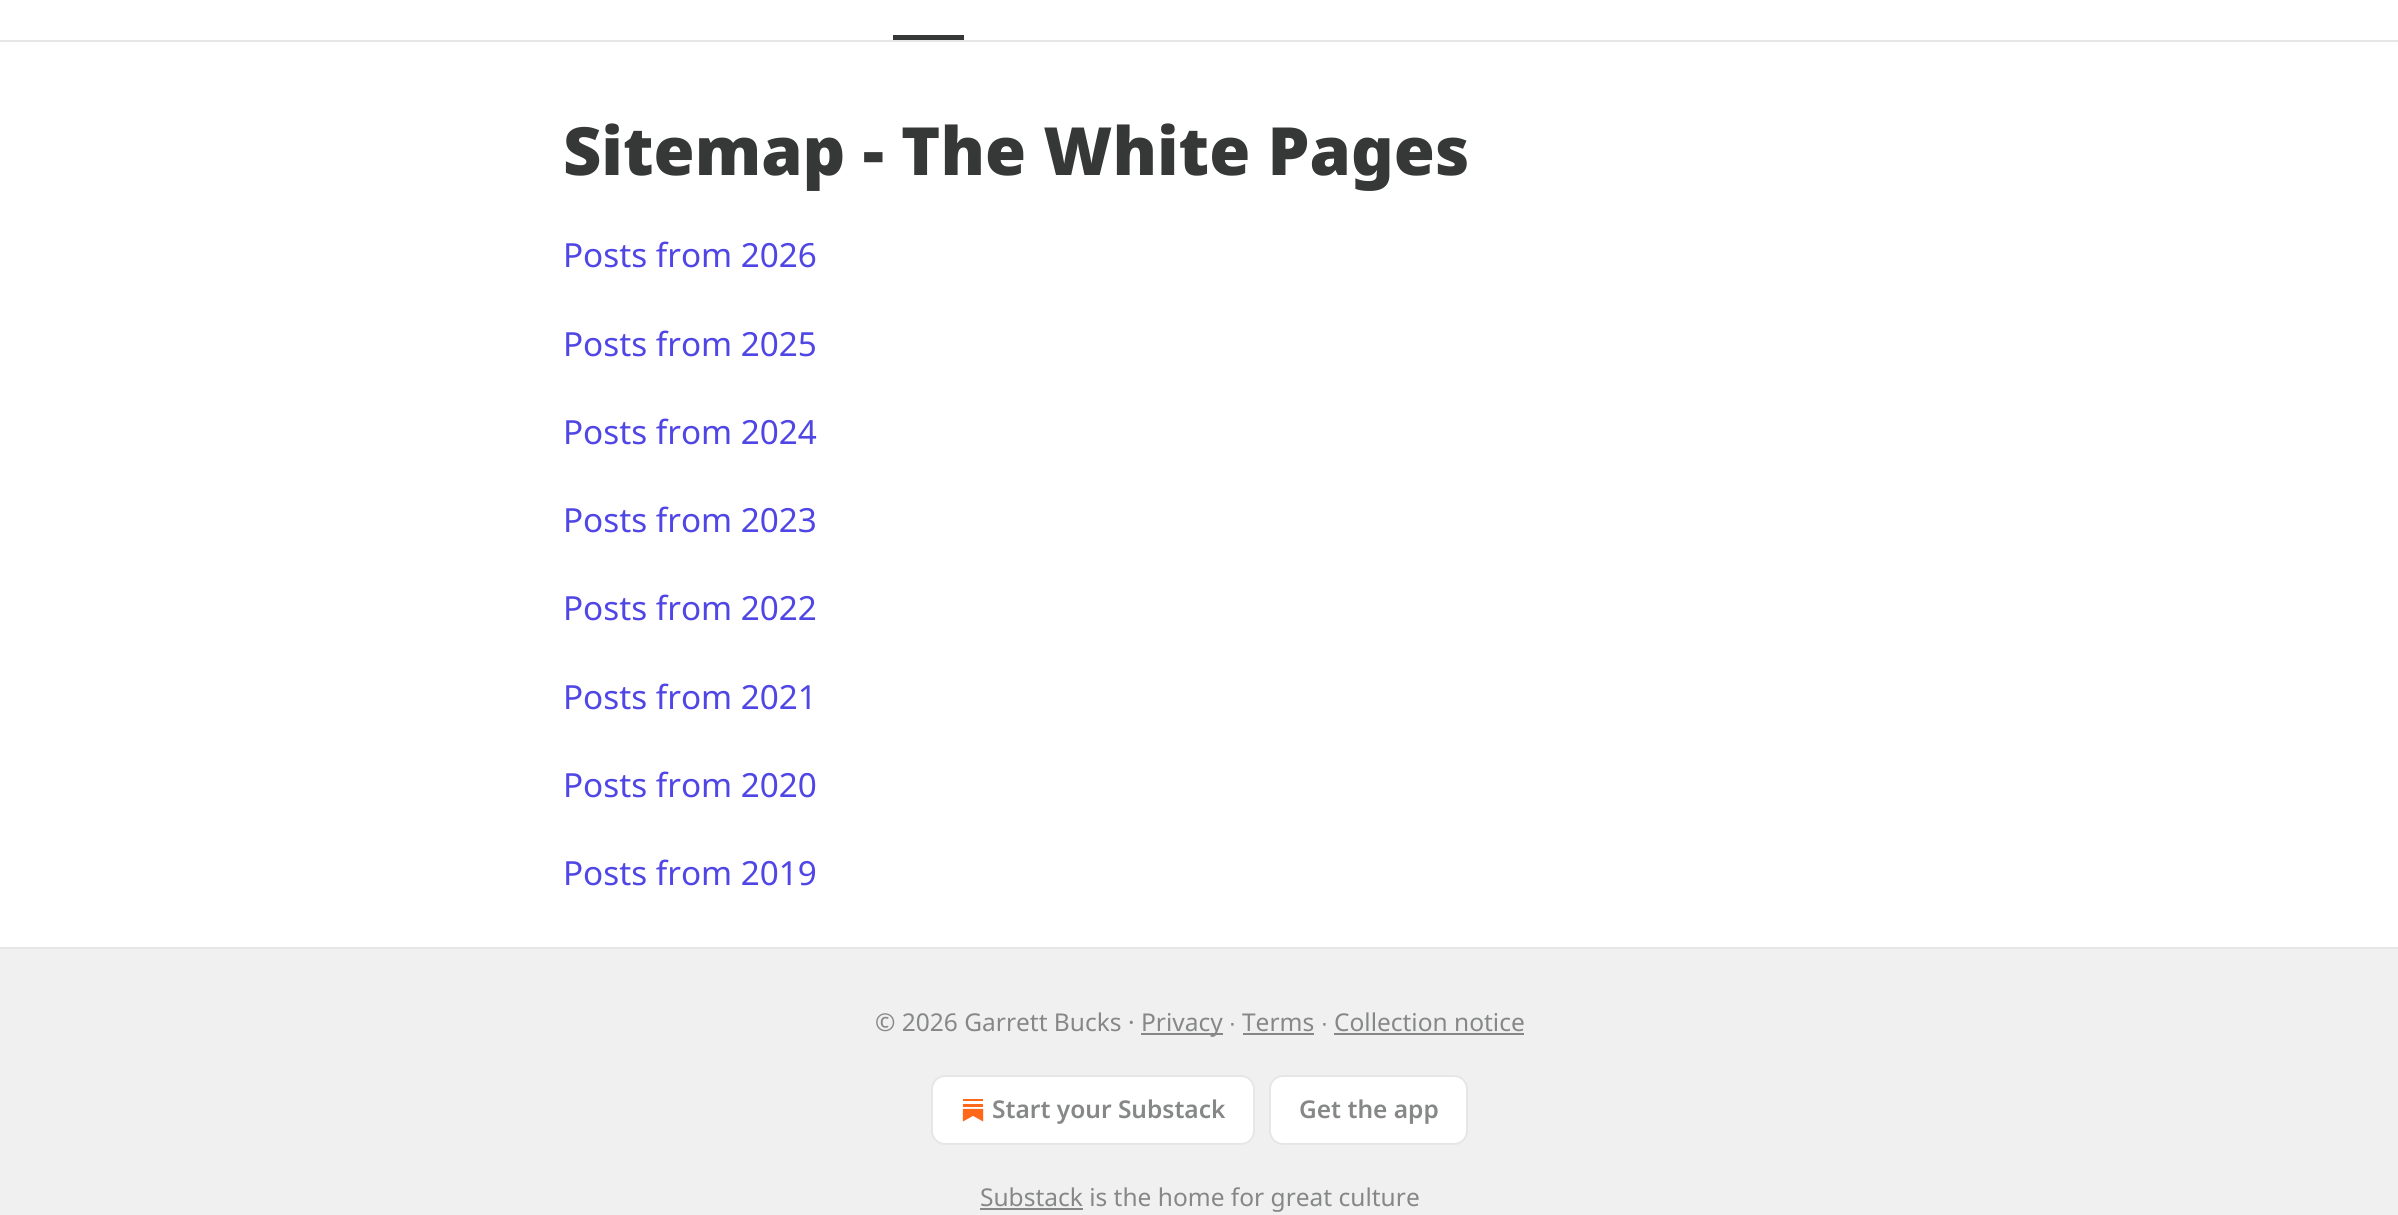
import math
import cairo


def round_path(ctx, x, y, w, h, r):
	ctx.new_sub_path()
	for i, (u, v) in enumerate([(x + w - r, y + h - r), (x + r, y + h - r), (x + r, y + r), (x + w - r, y + r)]):
		ctx.arc(u, v, r, i * math.pi / 2, (i + 1) * math.pi / 2)
	ctx.close_path()

def paste(ctx, path, x, y, w, h):
	ctx.save()
	ctx.set_source_surface(cairo.ImageSurface.create_from_png(path), x, y)
	ctx.rectangle(x, y, w, h)
	ctx.fill()
	ctx.restore()

def draw(ctx):
	ctx.set_source_rgb(1, 1, 1)
	ctx.paint()
	ctx.set_source_rgb(0.902, 0.902, 0.902)
	ctx.rectangle(0, 40, 2398, 2)
	ctx.fill()
	ctx.set_source_rgb(0.212, 0.216, 0.216)
	ctx.rectangle(893, 35, 71, 5)
	ctx.fill()
	ctx.select_font_face('Noto Sans Black')
	ctx.set_font_size(66.5)
	ctx.move_to(563, 175)
	ctx.show_text('Sitemap - The White Pages')
	ctx.select_font_face('Noto Sans')
	ctx.set_font_size(33.25)
	ctx.set_source_rgb(0.31, 0.275, 0.898)
	for x, y, s in [
		(563, 267, 'Posts from 2026'),
		(563, 356, 'Posts from 2025'),
		(563, 444, 'Posts from 2024'),
		(563, 532, 'Posts from 2023'),
		(563, 620, 'Posts from 2022'),
		(563, 709, 'Posts from 2021'),
		(563, 797, 'Posts from 2020'),
		(563, 885, 'Posts from 2019'),
	]:
		ctx.move_to(x, y)
		ctx.show_text(s)
	ctx.set_source_rgb(0.941, 0.941, 0.941)
	ctx.rectangle(0, 949, 2398, 266)
	ctx.fill()
	ctx.set_source_rgb(0.902, 0.902, 0.902)
	ctx.rectangle(0, 947, 2398, 2)
	ctx.fill()
	ctx.set_font_size(24.5)
	ctx.set_source_rgb(0.525, 0.529, 0.529)
	ctx.move_to(875, 1031)
	ctx.show_text('© 2026 Garrett Bucks ·')
	ctx.rectangle(1141, 1033, 82, 2)
	ctx.fill()
	ctx.move_to(1141, 1031)
	ctx.show_text('Privacy')
	ctx.select_font_face('Liberation Sans')
	ctx.move_to(1229, 1031)
	ctx.show_text('∙')
	ctx.select_font_face('Noto Sans')
	ctx.move_to(1242, 1031)
	ctx.show_text('Terms')
	ctx.rectangle(1243, 1033, 71, 2)
	ctx.fill()
	ctx.select_font_face('Liberation Sans')
	ctx.move_to(1321, 1031)
	ctx.show_text('∙')
	ctx.select_font_face('Noto Sans')
	ctx.move_to(1334, 1031)
	ctx.show_text('Collection notice')
	ctx.rectangle(1334, 1033, 190, 2)
	ctx.fill()
	ctx.set_source_rgb(1, 1, 1)
	round_path(ctx, 932, 1076, 322, 68, 13)
	ctx.fill_preserve()
	ctx.set_source_rgb(0.902, 0.902, 0.902)
	ctx.stroke()
	paste(ctx, 'media/1.png', 962, 1099, 22, 23)
	ctx.select_font_face('Noto Sans SemiBold')
	ctx.set_source_rgb(0.525, 0.529, 0.529)
	ctx.move_to(992, 1118)
	ctx.show_text('Start your Substack')
	ctx.set_source_rgb(1, 1, 1)
	round_path(ctx, 1270, 1076, 197, 68, 13)
	ctx.fill_preserve()
	ctx.set_source_rgb(0.902, 0.902, 0.902)
	ctx.stroke()
	ctx.set_source_rgb(0.525, 0.529, 0.529)
	ctx.move_to(1299, 1118)
	ctx.show_text('Get the app')
	ctx.rectangle(980, 1208, 103, 2)
	ctx.fill()
	ctx.select_font_face('Noto Sans')
	ctx.move_to(980, 1206)
	ctx.show_text('Substack is the home for great culture')


surface = cairo.ImageSurface(cairo.FORMAT_RGB24, 2398, 1215)
ctx = cairo.Context(surface)
options = cairo.FontOptions()
options.set_hint_metrics(cairo.HINT_METRICS_OFF)
options.set_hint_style(cairo.HINT_STYLE_NONE)
ctx.set_font_options(options)
ctx.set_miter_limit(4)
draw(ctx)
surface.write_to_png('image.png')
